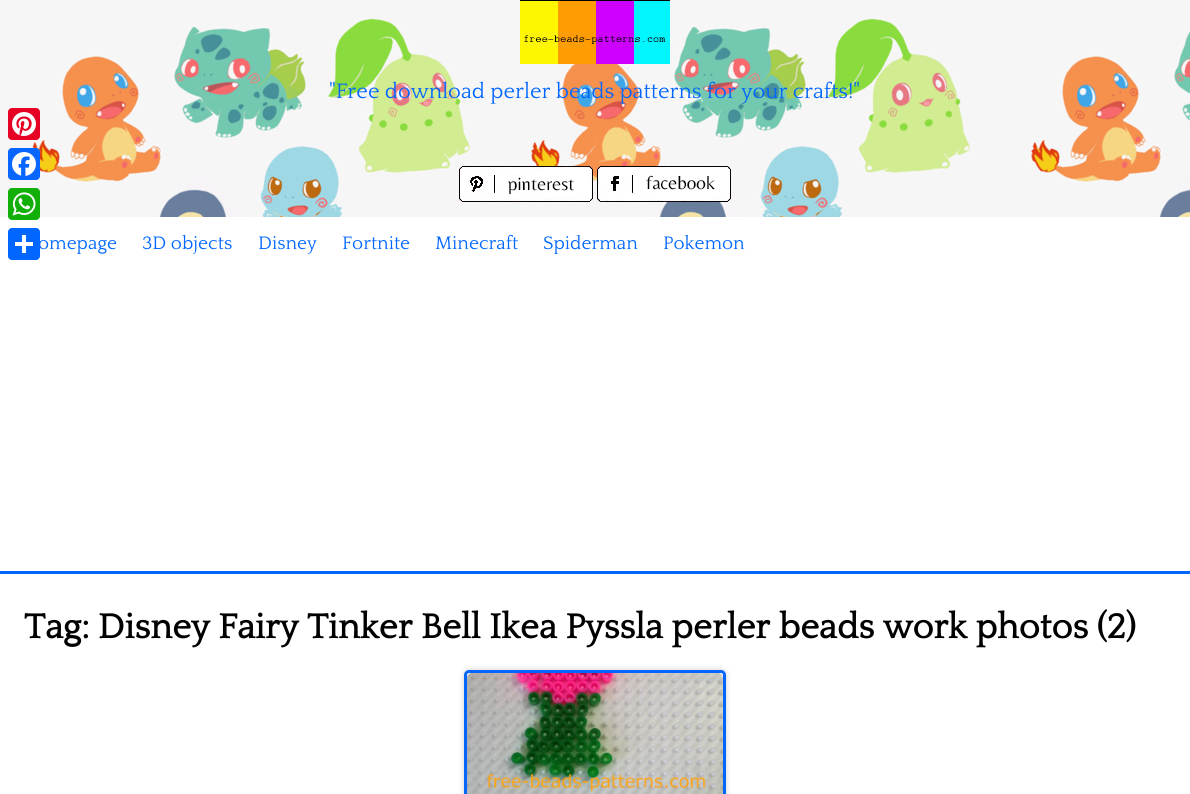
import math
import cairo


def round_path(ctx, x, y, w, h, r):
	ctx.new_sub_path()
	for i, (u, v) in enumerate([(x + w - r, y + h - r), (x + r, y + h - r), (x + r, y + r), (x + w - r, y + r)]):
		ctx.arc(u, v, r, i * math.pi / 2, (i + 1) * math.pi / 2)
	ctx.close_path()

def blur_box(ctx, x, y, w, h, r, blur, alpha):
	ctx.push_group_with_content(cairo.CONTENT_ALPHA)
	ctx.set_operator(cairo.OPERATOR_SOURCE)
	for i in range(15, -16, -2):
		e = blur * i / 6
		if min(w, h) + 2 * e > 0:
			ctx.set_source_rgba(0, 0, 0, alpha * math.erfc((i - 1) / 8.5) / 2)
			round_path(ctx, x - e, y - e, w + 2 * e, h + 2 * e, max(0, min(r + e + blur * .6, min(w, h) / 2 + e)))
			ctx.fill()
	ctx.mask(ctx.pop_group())

def paste(ctx, path, x, y, w, h):
	ctx.save()
	ctx.set_source_surface(cairo.ImageSurface.create_from_png(path), x, y)
	ctx.rectangle(x, y, w, h)
	ctx.fill()
	ctx.restore()

def draw(ctx):
	ctx.set_source_rgb(1, 1, 1)
	ctx.paint()
	paste(ctx, 'media/1.png', 0, 0, 1190, 217)
	paste(ctx, 'media/2.png', 520, 0, 150, 64)
	ctx.select_font_face('Quattrocento')
	ctx.set_font_size(22)
	ctx.set_source_rgb(0, 0.4, 1)
	ctx.move_to(329, 98)
	ctx.show_text('"Free download perler beads patterns for your crafts!"')
	paste(ctx, 'media/3.png', 459, 166, 134, 36)
	paste(ctx, 'media/4.png', 597, 166, 134, 36)
	ctx.rectangle(0, 571, 1190, 3)
	ctx.fill()
	ctx.set_font_size(19)
	for x, y, s in [
		(38, 249, 'omepage'),
		(142, 249, '3D objects'),
		(258, 249, 'Disney'),
		(342, 249, 'Fortnite'),
		(435, 249, 'Minecraft'),
		(543, 249, 'Spiderman'),
		(663, 249, 'Pokemon'),
	]:
		ctx.move_to(x, y)
		ctx.show_text(s)
	ctx.select_font_face('Quattrocento', cairo.FONT_SLANT_NORMAL, cairo.FONT_WEIGHT_BOLD)
	ctx.set_font_size(36)
	ctx.set_source_rgb(0, 0, 0)
	ctx.move_to(24, 638)
	ctx.show_text('Tag: Disney Fairy Tinker Bell Ikea Pyssla perler beads work photos (2)')
	ctx.set_source_rgb(0, 0, 0)
	blur_box(ctx, 464, 670, 262, 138, 5, 3, 0.2)
	ctx.set_source_rgb(1, 1, 1)
	round_path(ctx, 465.5, 671.5, 259, 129, 3.5)
	ctx.fill_preserve()
	ctx.set_source_rgb(0, 0.4, 1)
	ctx.set_line_width(3)
	ctx.stroke()
	paste(ctx, 'media/5.png', 467, 673, 256, 121)
	ctx.set_source_rgb(0.902, 0, 0.137)
	round_path(ctx, 8, 108, 32, 32, 4)
	ctx.fill()
	paste(ctx, 'media/6.png', 12, 112, 24, 24)
	ctx.set_source_rgb(0.031, 0.4, 1)
	round_path(ctx, 8, 148, 32, 32, 4)
	ctx.fill()
	paste(ctx, 'media/7.png', 12, 152, 24, 24)
	ctx.set_source_rgb(0.071, 0.686, 0.039)
	round_path(ctx, 8, 188, 32, 32, 4)
	ctx.fill()
	paste(ctx, 'media/8.png', 12, 192, 24, 24)
	ctx.set_source_rgb(0.004, 0.4, 1)
	round_path(ctx, 8, 228, 32, 32, 4)
	ctx.fill()
	ctx.set_source_rgb(1, 1, 1)
	ctx.rectangle(22, 235, 4, 18)
	ctx.fill()
	ctx.rectangle(15, 242, 18, 4)
	ctx.fill()


surface = cairo.ImageSurface(cairo.FORMAT_RGB24, 1190, 794)
ctx = cairo.Context(surface)
options = cairo.FontOptions()
options.set_hint_metrics(cairo.HINT_METRICS_OFF)
options.set_hint_style(cairo.HINT_STYLE_NONE)
ctx.set_font_options(options)
ctx.set_miter_limit(4)
draw(ctx)
surface.write_to_png('image.png')
